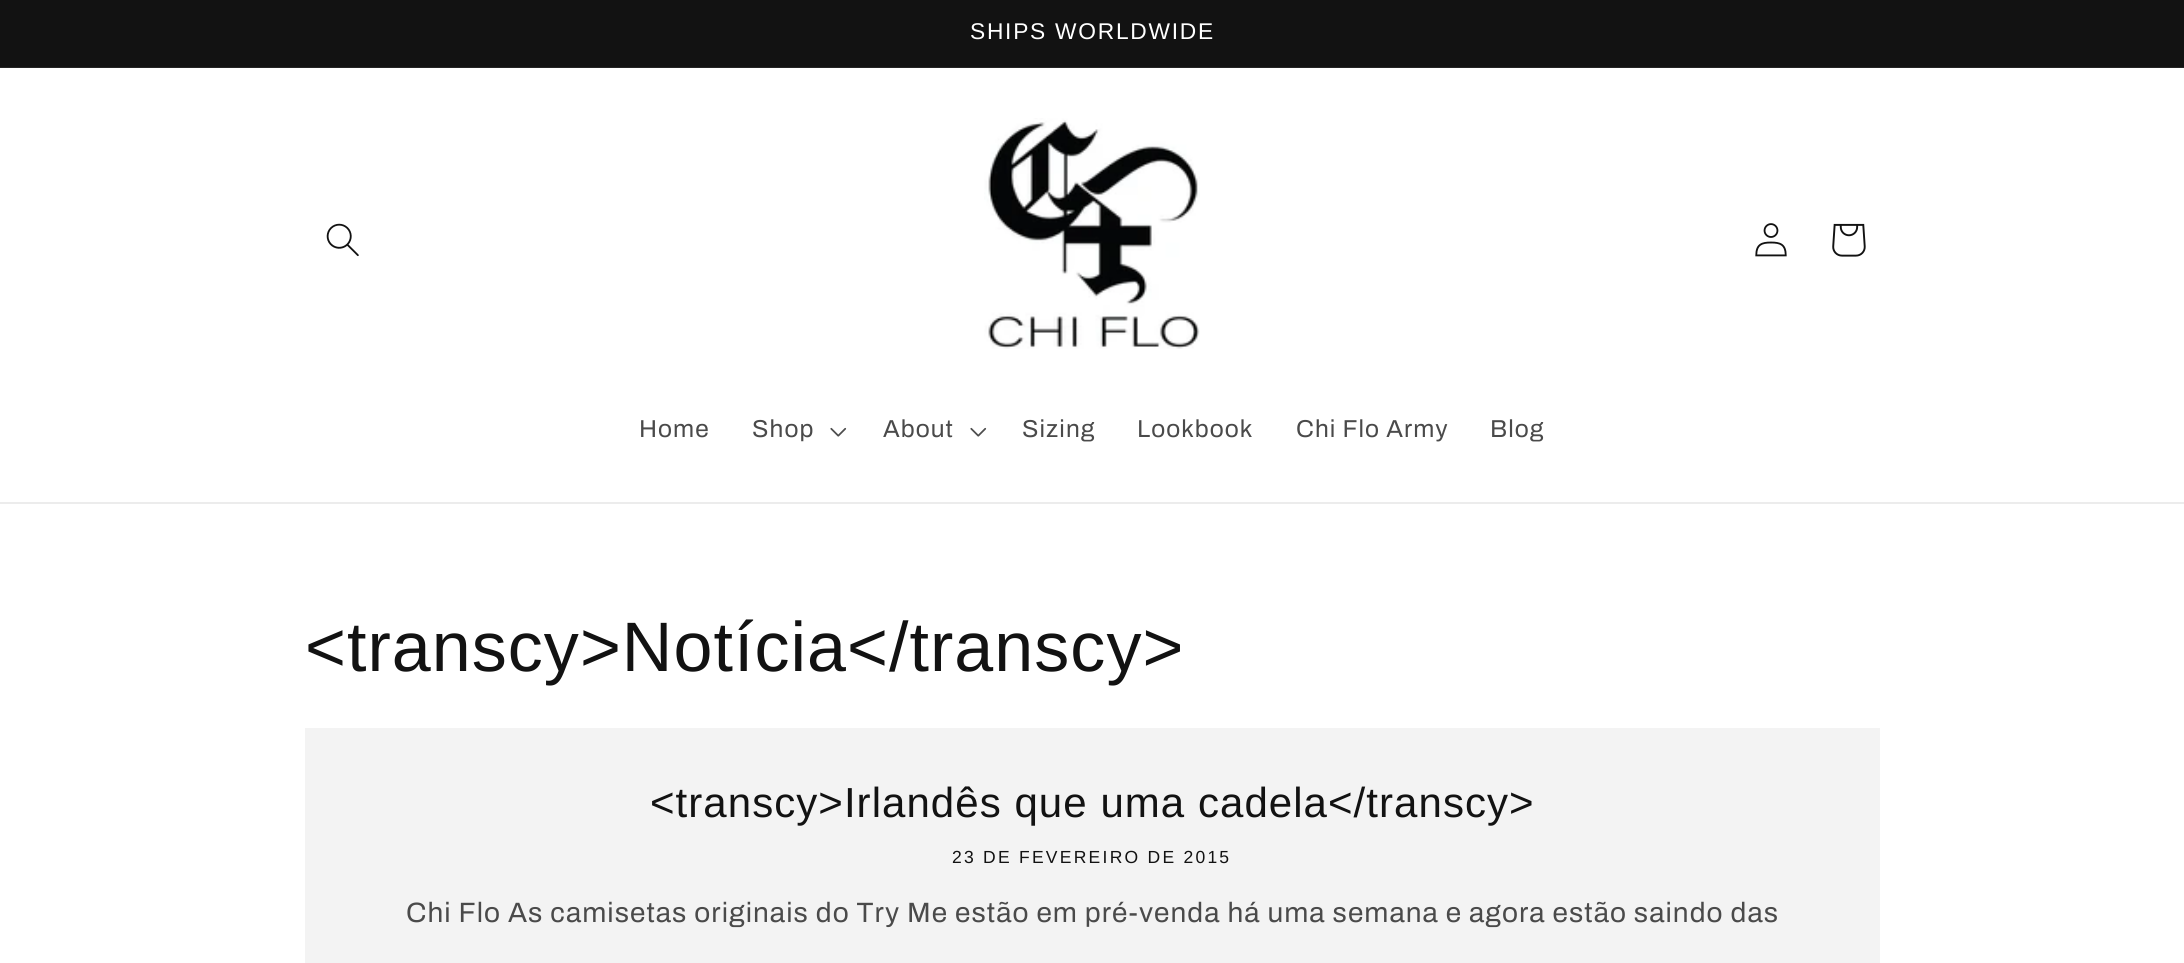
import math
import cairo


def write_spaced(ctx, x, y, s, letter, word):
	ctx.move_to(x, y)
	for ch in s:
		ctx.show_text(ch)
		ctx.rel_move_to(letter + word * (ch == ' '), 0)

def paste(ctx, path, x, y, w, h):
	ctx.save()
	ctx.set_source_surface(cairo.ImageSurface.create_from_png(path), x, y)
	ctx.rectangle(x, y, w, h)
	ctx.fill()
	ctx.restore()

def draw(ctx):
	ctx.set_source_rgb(1, 1, 1)
	ctx.paint()
	ctx.set_source_rgb(0.071, 0.071, 0.071)
	ctx.rectangle(0, 0, 2184, 67)
	ctx.fill()
	ctx.set_source_rgb(0.145, 0.145, 0.145)
	ctx.rectangle(0, 67, 2184, 1)
	ctx.fill()
	ctx.select_font_face('Arimo')
	ctx.set_font_size(22.75)
	ctx.set_source_rgb(1, 1, 1)
	write_spaced(ctx, 970, 39, 'SHIPS WORLDWIDE', 1.75, 0)
	ctx.set_source_rgb(0.925, 0.925, 0.925)
	ctx.rectangle(0, 502, 2184, 2)
	ctx.fill()
	paste(ctx, 'media/1.png', 326, 223, 33, 34)
	paste(ctx, 'media/2.png', 984, 118, 216, 231)
	paste(ctx, 'media/3.png', 1755, 223, 32, 34)
	paste(ctx, 'media/4.png', 1832, 223, 34, 34)
	ctx.select_font_face('Archivo')
	ctx.set_font_size(24.5)
	ctx.set_source_rgb(0.29, 0.29, 0.29)
	write_spaced(ctx, 639, 437, 'Home', 1.05, 0)
	write_spaced(ctx, 752, 437, 'Shop', 1.05, 0)
	paste(ctx, 'media/5.png', 830, 427, 17, 10)
	write_spaced(ctx, 883, 437, 'About', 1.05, 0)
	paste(ctx, 'media/5.png', 970, 427, 17, 10)
	for x, y, s in [
		(1022, 437, 'Sizing'),
		(1137, 437, 'Lookbook'),
		(1296, 437, 'Chi Flo Army'),
		(1490, 437, 'Blog'),
	]:
		write_spaced(ctx, x, y, s, 1.05, 0)
	ctx.select_font_face('Arimo')
	ctx.set_font_size(70)
	ctx.set_source_rgb(0.071, 0.071, 0.071)
	write_spaced(ctx, 305, 671, '<transcy>Notícia</transcy>', 1.05, 0)
	ctx.set_source_rgb(0.953, 0.953, 0.953)
	ctx.rectangle(305, 728, 1575, 235)
	ctx.fill()
	ctx.set_font_size(42)
	ctx.set_source_rgb(0.071, 0.071, 0.071)
	write_spaced(ctx, 650, 817, '<transcy>Irlandês que uma cadela</transcy>', 1.05, 0)
	ctx.set_font_size(17.5)
	write_spaced(ctx, 952, 863, '23 DE FEVEREIRO DE 2015', 2.25, 0)
	ctx.select_font_face('Archivo')
	ctx.set_font_size(28)
	ctx.set_source_rgb(0.29, 0.29, 0.29)
	write_spaced(ctx, 406, 922, 'Chi Flo As camisetas originais do Try Me estão em pré-venda há uma semana e agora estão saindo das', 1.05, 0)


surface = cairo.ImageSurface(cairo.FORMAT_RGB24, 2184, 963)
ctx = cairo.Context(surface)
options = cairo.FontOptions()
options.set_hint_metrics(cairo.HINT_METRICS_OFF)
options.set_hint_style(cairo.HINT_STYLE_NONE)
ctx.set_font_options(options)
ctx.set_miter_limit(4)
draw(ctx)
surface.write_to_png('image.png')
